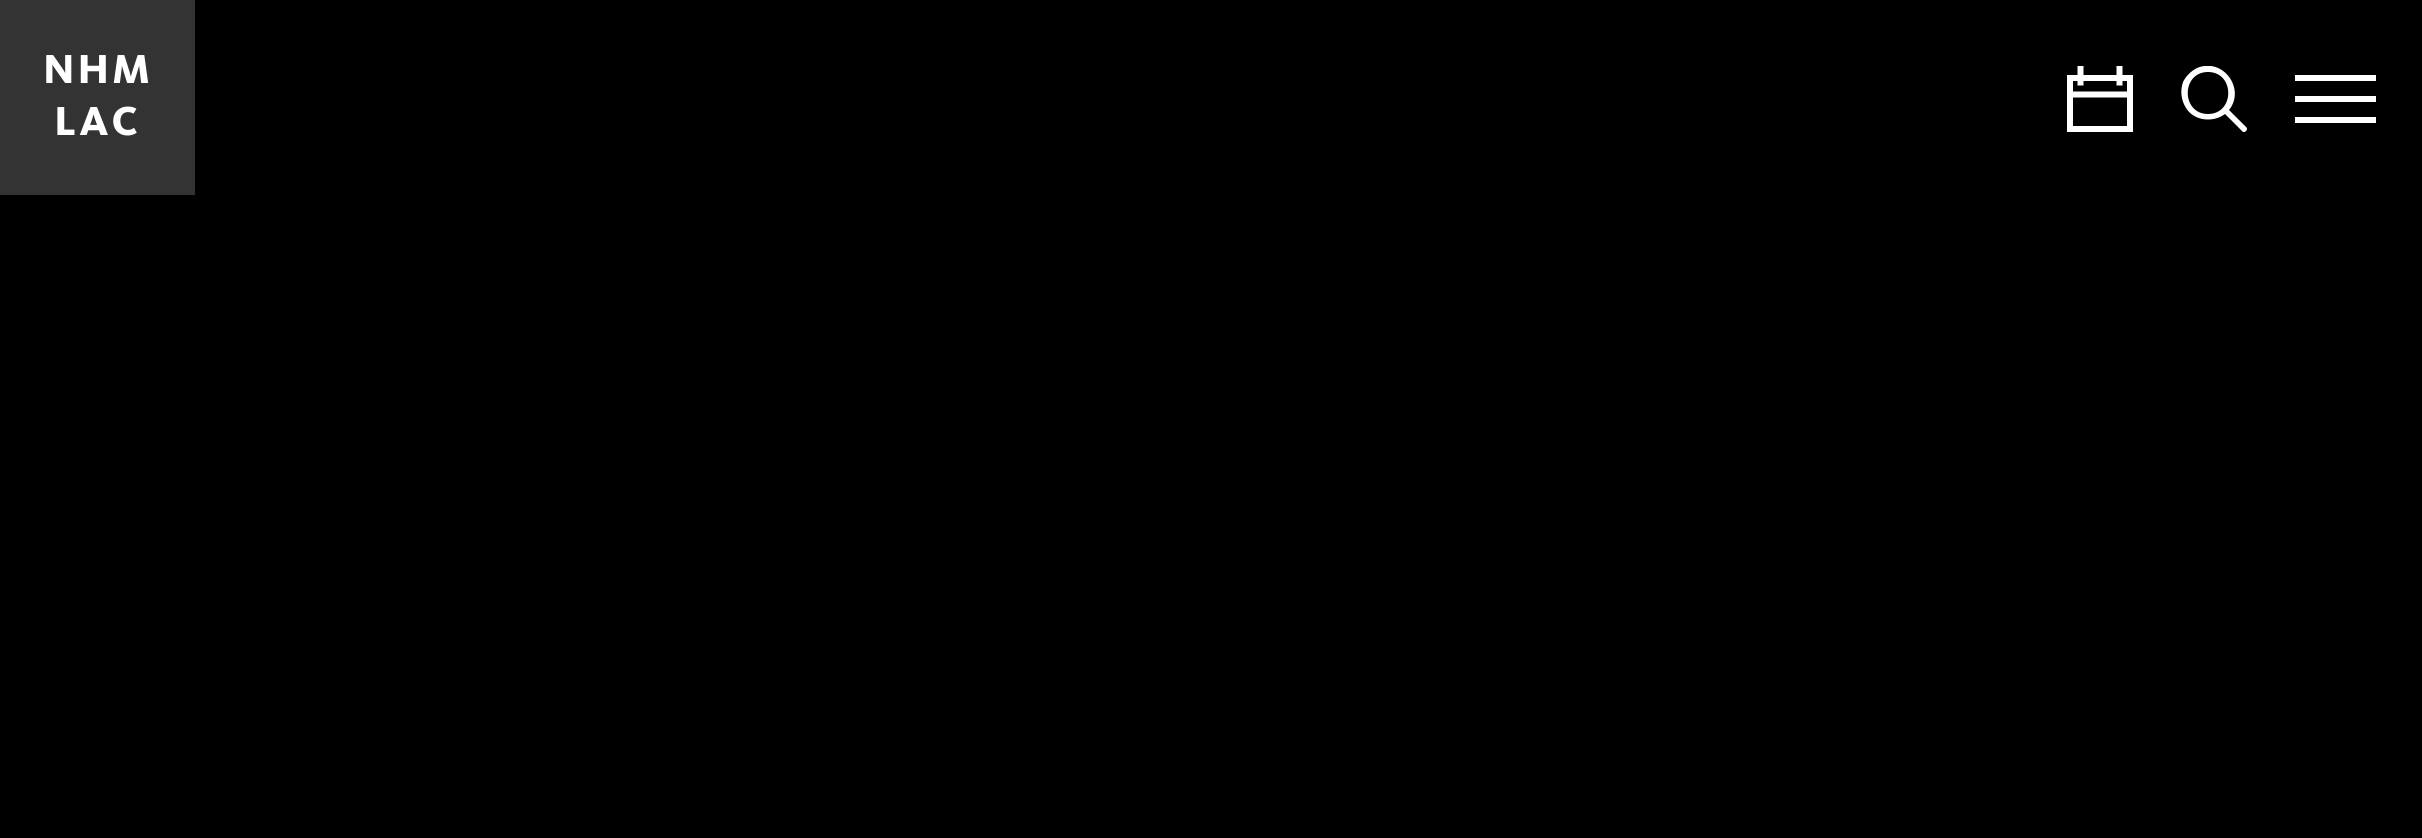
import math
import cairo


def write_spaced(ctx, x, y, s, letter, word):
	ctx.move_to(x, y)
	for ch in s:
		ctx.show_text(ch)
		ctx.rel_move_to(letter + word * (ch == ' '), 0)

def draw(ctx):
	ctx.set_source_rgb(0, 0, 0)
	ctx.paint()
	ctx.set_source_rgb(0.2, 0.2, 0.2)
	ctx.rectangle(0, 0, 195, 195)
	ctx.fill()
	ctx.select_font_face('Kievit', cairo.FONT_SLANT_NORMAL, cairo.FONT_WEIGHT_BOLD)
	ctx.set_font_size(42)
	ctx.set_source_rgb(1, 1, 1)
	write_spaced(ctx, 43, 83, 'NHM', 3, 0)
	write_spaced(ctx, 54, 135, 'LAC', 3, 0)
	ctx.rectangle(2070, 78, 60, 51)
	ctx.set_line_width(6)
	ctx.stroke()
	ctx.save()
	ctx.rectangle(2067, 66, 66, 66)
	ctx.clip()
	ctx.new_path()
	ctx.move_to(2119.5, 67.5)
	ctx.line_to(2119.5, 82.5)
	ctx.move_to(2080.5, 67.5)
	ctx.line_to(2080.5, 82.5)
	ctx.set_line_cap(cairo.LINE_CAP_SQUARE)
	ctx.stroke()
	ctx.restore()
	ctx.new_path()
	ctx.move_to(2071.5, 94.5)
	ctx.line_to(2130, 94.5)
	ctx.set_line_cap(cairo.LINE_CAP_SQUARE)
	ctx.stroke()
	ctx.save()
	ctx.rectangle(2181, 66, 66, 66)
	ctx.clip()
	ctx.new_path()
	ctx.move_to(2208, 114)
	ctx.curve_to(2181, 114, 2181, 72, 2208, 72)
	ctx.curve_to(2235, 72, 2235, 114, 2208, 114)
	ctx.move_to(2246, 127)
	ctx.line_to(2229, 110)
	ctx.curve_to(2246, 89, 2223, 57, 2197, 68)
	ctx.curve_to(2191, 71, 2186, 76, 2183, 82)
	ctx.curve_to(2180, 91, 2181, 100, 2186, 108)
	ctx.curve_to(2194, 121, 2213, 123, 2225, 114)
	ctx.line_to(2243, 132)
	ctx.curve_to(2245, 133, 2249, 129, 2246, 127)
	ctx.fill()
	ctx.restore()
	ctx.rectangle(2295, 75, 81, 6)
	ctx.rectangle(2295, 96, 81, 6)
	ctx.rectangle(2295, 117, 81, 6)
	ctx.fill()


surface = cairo.ImageSurface(cairo.FORMAT_RGB24, 2422, 838)
ctx = cairo.Context(surface)
options = cairo.FontOptions()
options.set_hint_metrics(cairo.HINT_METRICS_OFF)
options.set_hint_style(cairo.HINT_STYLE_NONE)
ctx.set_font_options(options)
ctx.set_miter_limit(4)
draw(ctx)
surface.write_to_png('image.png')
